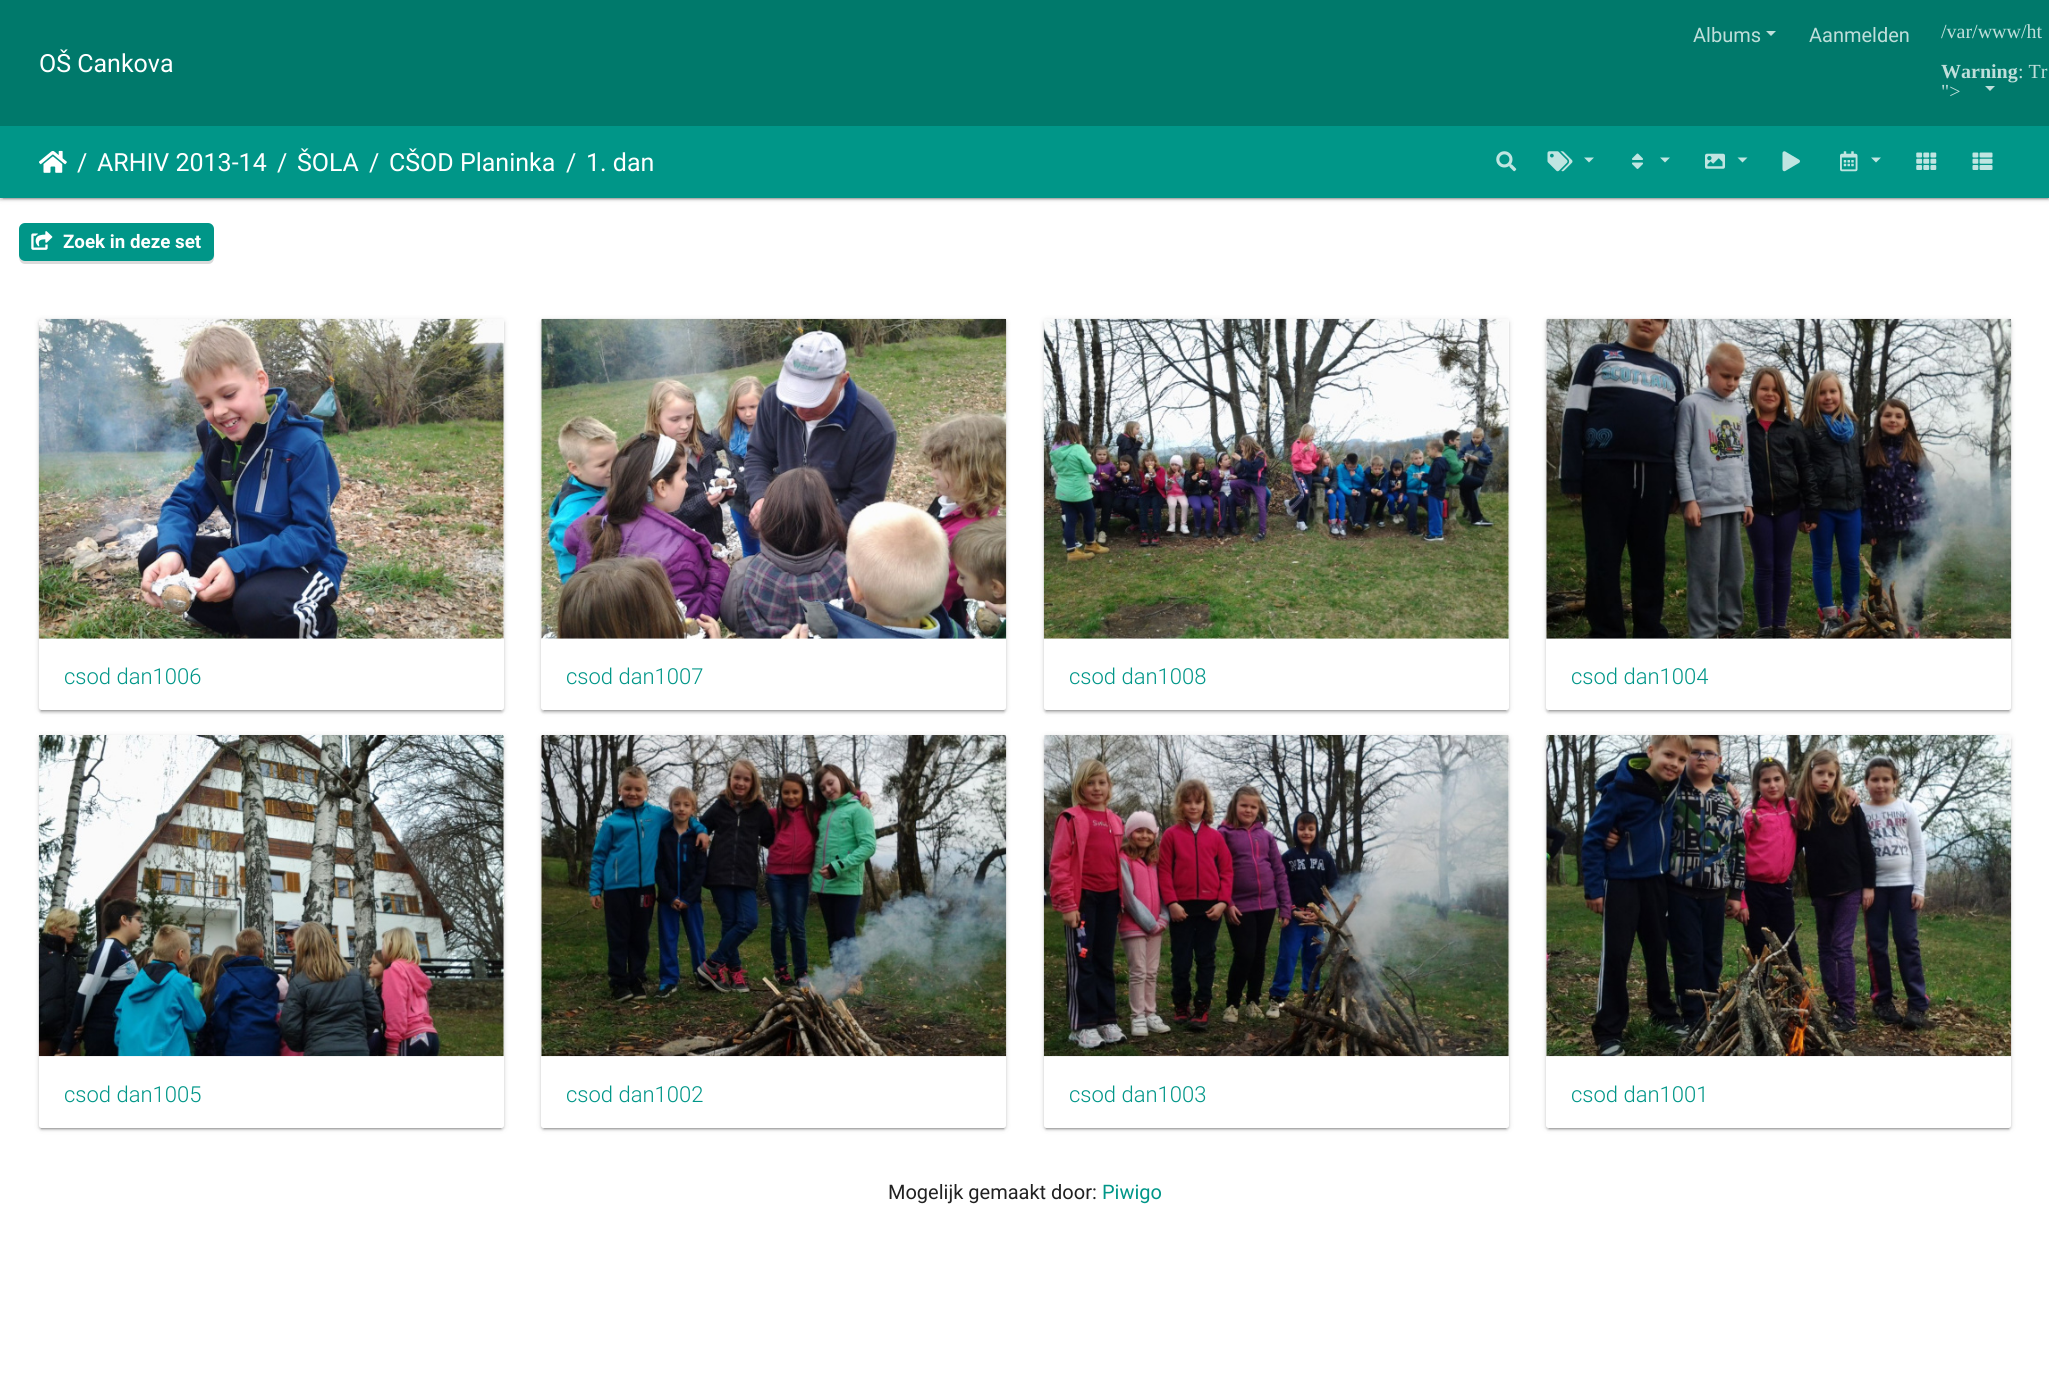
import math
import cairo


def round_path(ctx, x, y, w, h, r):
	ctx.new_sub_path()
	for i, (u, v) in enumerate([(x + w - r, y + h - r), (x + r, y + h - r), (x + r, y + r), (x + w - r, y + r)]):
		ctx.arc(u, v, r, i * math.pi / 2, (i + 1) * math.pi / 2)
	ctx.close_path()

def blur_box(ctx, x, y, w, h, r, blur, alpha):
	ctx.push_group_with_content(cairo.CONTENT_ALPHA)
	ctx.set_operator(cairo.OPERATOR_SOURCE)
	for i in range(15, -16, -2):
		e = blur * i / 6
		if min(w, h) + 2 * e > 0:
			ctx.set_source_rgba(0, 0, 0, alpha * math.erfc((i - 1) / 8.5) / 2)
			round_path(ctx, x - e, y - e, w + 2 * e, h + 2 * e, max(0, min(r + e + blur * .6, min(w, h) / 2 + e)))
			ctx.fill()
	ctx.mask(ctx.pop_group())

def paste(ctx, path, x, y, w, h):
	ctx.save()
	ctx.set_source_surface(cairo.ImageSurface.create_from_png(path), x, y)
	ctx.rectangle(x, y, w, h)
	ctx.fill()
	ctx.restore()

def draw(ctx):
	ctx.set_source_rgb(1, 1, 1)
	ctx.paint()
	ctx.set_source_rgb(0, 0, 0)
	blur_box(ctx, 0, 128, 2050, 71, 0, 3, 0.12)
	blur_box(ctx, 0, 129, 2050, 71, 0, 1, 0.14)
	ctx.set_source_rgb(0, 0.475, 0.42)
	ctx.rectangle(0, 0, 2049, 126)
	ctx.fill()
	ctx.select_font_face('Roboto')
	ctx.set_font_size(25)
	ctx.set_source_rgb(1, 1, 1)
	ctx.move_to(39, 72)
	ctx.show_text('OŠ Cankova')
	ctx.set_font_size(20)
	ctx.set_source_rgb(0.749, 0.871, 0.855)
	ctx.move_to(1693, 42)
	ctx.show_text('Albums')
	ctx.new_path()
	ctx.move_to(1766, 31)
	ctx.line_to(1776, 31)
	ctx.line_to(1771, 36)
	ctx.close_path()
	ctx.fill()
	ctx.move_to(1809, 42)
	ctx.show_text('Aanmelden')
	ctx.select_font_face('Liberation Serif')
	ctx.move_to(1941, 38)
	ctx.show_text('/var/www/ht')
	ctx.select_font_face('Liberation Serif', cairo.FONT_SLANT_NORMAL, cairo.FONT_WEIGHT_BOLD)
	ctx.move_to(1941, 78)
	ctx.show_text('Warning')
	ctx.select_font_face('Liberation Serif')
	ctx.move_to(2018, 78)
	ctx.show_text(': Tr')
	ctx.move_to(1941, 98)
	ctx.show_text('">')
	ctx.new_path()
	ctx.move_to(1985, 86)
	ctx.line_to(1995, 86)
	ctx.line_to(1990, 91)
	ctx.close_path()
	ctx.fill()
	ctx.set_source_rgb(0, 0, 0)
	blur_box(ctx, 3, 133, 2045, 66, 0, 0.5, 0.2)
	ctx.set_source_rgb(0, 0.588, 0.533)
	ctx.rectangle(0, 126, 2049, 72)
	ctx.fill()
	paste(ctx, 'media/1.png', 39, 150, 28, 23)
	ctx.select_font_face('Roboto')
	ctx.set_font_size(25)
	ctx.set_source_rgb(1, 1, 1)
	for x, y, s in [
		(77, 171, '/'),
		(97, 171, 'ARHIV 2013-14'),
		(277, 171, '/'),
		(297, 171, 'ŠOLA'),
		(369, 171, '/'),
		(389, 171, 'CŠOD Planinka'),
		(566, 171, '/'),
		(586, 171, '1. dan'),
	]:
		ctx.move_to(x, y)
		ctx.show_text(s)
	paste(ctx, 'media/2.png', 1496, 151, 21, 21)
	paste(ctx, 'media/3.png', 1547, 151, 26, 21)
	ctx.set_source_rgb(0.749, 0.898, 0.882)
	ctx.new_path()
	ctx.move_to(1584, 157.5)
	ctx.line_to(1594, 157.5)
	ctx.line_to(1589, 162.5)
	ctx.close_path()
	ctx.fill()
	paste(ctx, 'media/4.png', 1632, 153, 11, 16)
	ctx.new_path()
	ctx.move_to(1660, 157.5)
	ctx.line_to(1670, 157.5)
	ctx.line_to(1665, 162.5)
	ctx.close_path()
	ctx.fill()
	paste(ctx, 'media/5.png', 1705, 153, 20, 16)
	ctx.new_path()
	ctx.move_to(1737.5, 157.5)
	ctx.line_to(1747.5, 157.5)
	ctx.line_to(1742.5, 162.5)
	ctx.close_path()
	ctx.fill()
	paste(ctx, 'media/6.png', 1782, 151, 18, 21)
	paste(ctx, 'media/7.png', 1840, 151, 18, 21)
	ctx.new_path()
	ctx.move_to(1871, 157.5)
	ctx.line_to(1881, 157.5)
	ctx.line_to(1876, 162.5)
	ctx.close_path()
	ctx.fill()
	paste(ctx, 'media/8.png', 1916, 152, 21, 18)
	paste(ctx, 'media/9.png', 1972, 152, 21, 18)
	ctx.set_source_rgb(0.859, 0.859, 0.859)
	ctx.new_path()
	ctx.move_to(19, 257)
	ctx.curve_to(19, 260, 21, 264, 25, 264)
	ctx.line_to(208, 264)
	ctx.curve_to(216, 264, 214, 254, 214, 249)
	ctx.line_to(214, 229)
	ctx.line_to(214, 255)
	ctx.curve_to(214, 258, 211, 261, 208, 261)
	ctx.line_to(25, 261)
	ctx.curve_to(22, 261, 20, 259, 19, 257)
	ctx.close_path()
	ctx.fill()
	ctx.set_source_rgb(0, 0.588, 0.533)
	round_path(ctx, 19, 223, 195, 38, 6)
	ctx.fill()
	paste(ctx, 'media/10.png', 31, 231, 22, 19)
	ctx.select_font_face('Roboto', cairo.FONT_SLANT_NORMAL, cairo.FONT_WEIGHT_BOLD)
	ctx.set_font_size(18.75)
	ctx.set_source_rgb(1, 1, 1)
	ctx.move_to(63, 248)
	ctx.show_text('Zoek in deze set')
	ctx.set_source_rgb(0, 0, 0)
	blur_box(ctx, 39, 320, 465, 391, 2.5, 3, 0.12)
	blur_box(ctx, 41, 325, 460, 386, 0, 0.5, 0.2)
	blur_box(ctx, 39, 321, 465, 392, 2.5, 1, 0.14)
	ctx.set_source_rgb(1, 1, 1)
	round_path(ctx, 39, 319, 465, 391, 2.5)
	ctx.fill()
	paste(ctx, 'media/11.png', 38, 318, 466, 321)
	ctx.select_font_face('Roboto Light')
	ctx.set_font_size(22)
	ctx.set_source_rgb(0, 0.588, 0.533)
	ctx.move_to(64, 684)
	ctx.show_text('csod dan1006')
	ctx.set_source_rgb(0, 0, 0)
	blur_box(ctx, 541, 320, 465, 391, 2.5, 3, 0.12)
	blur_box(ctx, 544, 325, 460, 386, 0, 0.5, 0.2)
	blur_box(ctx, 541, 321, 465, 392, 2.5, 1, 0.14)
	ctx.set_source_rgb(1, 1, 1)
	round_path(ctx, 541, 319, 465, 391, 2.5)
	ctx.fill()
	paste(ctx, 'media/12.png', 541, 318, 466, 321)
	ctx.set_source_rgb(0, 0.588, 0.533)
	ctx.move_to(566, 684)
	ctx.show_text('csod dan1007')
	ctx.set_source_rgb(0, 0, 0)
	blur_box(ctx, 1044, 320, 465, 391, 2.5, 3, 0.12)
	blur_box(ctx, 1046, 325, 460, 386, 0, 0.5, 0.2)
	blur_box(ctx, 1044, 321, 465, 392, 2.5, 1, 0.14)
	ctx.set_source_rgb(1, 1, 1)
	round_path(ctx, 1044, 319, 465, 391, 2.5)
	ctx.fill()
	paste(ctx, 'media/13.png', 1043, 318, 466, 321)
	ctx.set_source_rgb(0, 0.588, 0.533)
	ctx.move_to(1069, 684)
	ctx.show_text('csod dan1008')
	ctx.set_source_rgb(0, 0, 0)
	blur_box(ctx, 1546, 320, 465, 391, 2.5, 3, 0.12)
	blur_box(ctx, 1549, 325, 460, 386, 0, 0.5, 0.2)
	blur_box(ctx, 1546, 321, 465, 392, 2.5, 1, 0.14)
	ctx.set_source_rgb(1, 1, 1)
	round_path(ctx, 1546, 319, 465, 391, 2.5)
	ctx.fill()
	paste(ctx, 'media/14.png', 1546, 318, 466, 321)
	ctx.set_source_rgb(0, 0.588, 0.533)
	ctx.move_to(1571, 684)
	ctx.show_text('csod dan1004')
	ctx.set_source_rgb(0, 0, 0)
	blur_box(ctx, 39, 736, 465, 393, 2.5, 3, 0.12)
	blur_box(ctx, 41, 741, 460, 388, 0, 0.5, 0.2)
	blur_box(ctx, 39, 738, 465, 392, 2.5, 1, 0.14)
	ctx.set_source_rgb(1, 1, 1)
	round_path(ctx, 39, 735, 465, 393, 2.5)
	ctx.fill()
	paste(ctx, 'media/15.png', 38, 735, 466, 322)
	ctx.set_source_rgb(0, 0.588, 0.533)
	ctx.move_to(64, 1102)
	ctx.show_text('csod dan1005')
	ctx.set_source_rgb(0, 0, 0)
	blur_box(ctx, 541, 736, 465, 393, 2.5, 3, 0.12)
	blur_box(ctx, 544, 741, 460, 388, 0, 0.5, 0.2)
	blur_box(ctx, 541, 738, 465, 392, 2.5, 1, 0.14)
	ctx.set_source_rgb(1, 1, 1)
	round_path(ctx, 541, 735, 465, 393, 2.5)
	ctx.fill()
	paste(ctx, 'media/16.png', 541, 735, 466, 322)
	ctx.set_source_rgb(0, 0.588, 0.533)
	ctx.move_to(566, 1102)
	ctx.show_text('csod dan1002')
	ctx.set_source_rgb(0, 0, 0)
	blur_box(ctx, 1044, 736, 465, 393, 2.5, 3, 0.12)
	blur_box(ctx, 1046, 741, 460, 388, 0, 0.5, 0.2)
	blur_box(ctx, 1044, 738, 465, 392, 2.5, 1, 0.14)
	ctx.set_source_rgb(1, 1, 1)
	round_path(ctx, 1044, 735, 465, 393, 2.5)
	ctx.fill()
	paste(ctx, 'media/17.png', 1043, 735, 466, 322)
	ctx.set_source_rgb(0, 0.588, 0.533)
	ctx.move_to(1069, 1102)
	ctx.show_text('csod dan1003')
	ctx.set_source_rgb(0, 0, 0)
	blur_box(ctx, 1546, 736, 465, 393, 2.5, 3, 0.12)
	blur_box(ctx, 1549, 741, 460, 388, 0, 0.5, 0.2)
	blur_box(ctx, 1546, 738, 465, 392, 2.5, 1, 0.14)
	ctx.set_source_rgb(1, 1, 1)
	round_path(ctx, 1546, 735, 465, 393, 2.5)
	ctx.fill()
	paste(ctx, 'media/18.png', 1546, 735, 466, 322)
	ctx.set_source_rgb(0, 0.588, 0.533)
	ctx.move_to(1571, 1102)
	ctx.show_text('csod dan1001')
	ctx.select_font_face('Roboto')
	ctx.set_font_size(20)
	ctx.set_source_rgb(0.129, 0.129, 0.129)
	ctx.move_to(888, 1199)
	ctx.show_text('Mogelijk gemaakt door:')
	ctx.set_source_rgb(0, 0.588, 0.533)
	ctx.move_to(1102, 1199)
	ctx.show_text('Piwigo')


surface = cairo.ImageSurface(cairo.FORMAT_RGB24, 2049, 1399)
ctx = cairo.Context(surface)
options = cairo.FontOptions()
options.set_hint_metrics(cairo.HINT_METRICS_OFF)
options.set_hint_style(cairo.HINT_STYLE_NONE)
ctx.set_font_options(options)
ctx.set_miter_limit(4)
draw(ctx)
surface.write_to_png('image.png')
